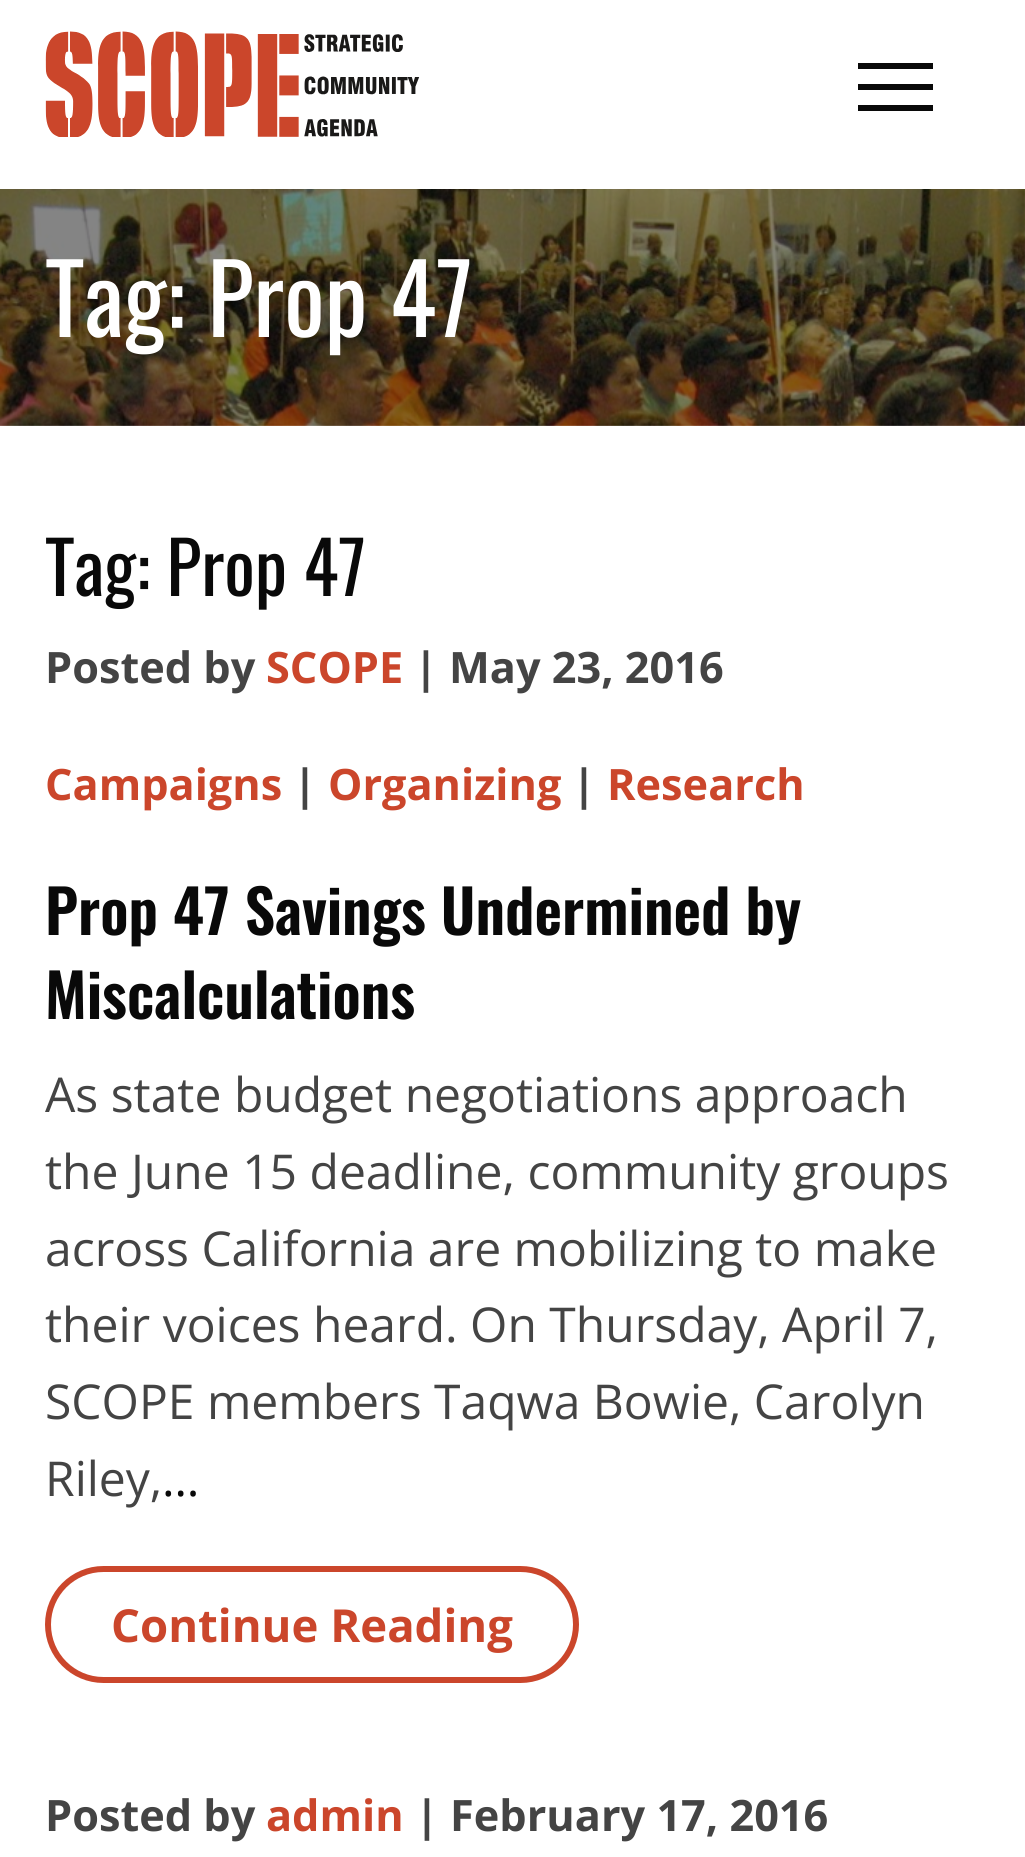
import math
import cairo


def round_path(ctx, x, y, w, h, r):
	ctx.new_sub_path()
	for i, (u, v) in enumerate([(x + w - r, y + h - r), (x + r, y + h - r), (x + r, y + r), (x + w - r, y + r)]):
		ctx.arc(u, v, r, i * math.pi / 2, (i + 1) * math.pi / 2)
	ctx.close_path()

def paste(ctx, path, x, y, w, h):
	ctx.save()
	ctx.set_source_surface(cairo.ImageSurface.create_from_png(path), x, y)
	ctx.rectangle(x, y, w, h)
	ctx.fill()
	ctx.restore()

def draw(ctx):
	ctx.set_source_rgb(1, 1, 1)
	ctx.paint()
	paste(ctx, 'media/1.png', 45, 31, 375, 106)
	ctx.set_source_rgb(0.039, 0.039, 0.039)
	ctx.rectangle(858, 63, 75, 6)
	ctx.rectangle(858, 84, 75, 6)
	ctx.rectangle(858, 105, 75, 6)
	ctx.fill()
	paste(ctx, 'media/2.png', 0, 189, 1025, 237)
	ctx.select_font_face('Oswald')
	ctx.set_font_size(96)
	ctx.set_source_rgb(1, 1, 1)
	ctx.move_to(45, 337)
	ctx.show_text('Tag: Prop 47')
	ctx.set_font_size(72)
	ctx.set_source_rgb(0.039, 0.039, 0.039)
	ctx.move_to(45, 596)
	ctx.show_text('Tag: Prop 47')
	ctx.select_font_face('Open Sans', cairo.FONT_SLANT_NORMAL, cairo.FONT_WEIGHT_BOLD)
	ctx.set_font_size(43.25)
	ctx.set_source_rgb(0.267, 0.267, 0.267)
	ctx.move_to(45, 683)
	ctx.show_text('Posted by')
	ctx.set_source_rgb(0.796, 0.275, 0.169)
	ctx.move_to(266, 683)
	ctx.show_text('SCOPE')
	ctx.set_source_rgb(0.267, 0.267, 0.267)
	ctx.move_to(414, 683)
	ctx.show_text('| May 23, 2016')
	ctx.set_source_rgb(0.796, 0.275, 0.169)
	ctx.move_to(45, 800)
	ctx.show_text('Campaigns')
	ctx.set_source_rgb(0.267, 0.267, 0.267)
	ctx.move_to(293, 800)
	ctx.show_text('|')
	ctx.set_source_rgb(0.796, 0.275, 0.169)
	ctx.move_to(328, 800)
	ctx.show_text('Organizing')
	ctx.set_source_rgb(0.267, 0.267, 0.267)
	ctx.move_to(572, 800)
	ctx.show_text('|')
	ctx.set_source_rgb(0.796, 0.275, 0.169)
	ctx.move_to(607, 800)
	ctx.show_text('Research')
	ctx.select_font_face('Oswald SemiBold')
	ctx.set_font_size(60)
	ctx.set_source_rgb(0.039, 0.039, 0.039)
	ctx.move_to(45, 935)
	ctx.show_text('Prop 47 Savings Undermined by')
	ctx.move_to(45, 1019)
	ctx.show_text('Miscalculations')
	ctx.select_font_face('Open Sans')
	ctx.set_font_size(48)
	ctx.set_source_rgb(0.267, 0.267, 0.267)
	for x, y, s in [
		(45, 1112, 'As state budget negotiations approach'),
		(45, 1189, 'the June 15 deadline, community groups'),
		(45, 1266, 'across California are mobilizing to make'),
		(45, 1342, 'their voices heard. On Thursday, April 7,'),
		(45, 1419, 'SCOPE members Taqwa Bowie, Carolyn'),
		(45, 1496, 'Riley,'),
	]:
		ctx.move_to(x, y)
		ctx.show_text(s)
	ctx.set_source_rgb(0.039, 0.039, 0.039)
	ctx.move_to(162, 1496)
	ctx.show_text('…')
	round_path(ctx, 48, 1569, 528, 111, 55.5)
	ctx.set_source_rgb(0.796, 0.275, 0.169)
	ctx.set_line_width(6)
	ctx.stroke()
	ctx.select_font_face('Open Sans', cairo.FONT_SLANT_NORMAL, cairo.FONT_WEIGHT_BOLD)
	ctx.set_font_size(45.5)
	ctx.move_to(111, 1642)
	ctx.show_text('Continue Reading')
	ctx.set_font_size(43.25)
	ctx.set_source_rgb(0.267, 0.267, 0.267)
	ctx.move_to(45, 1831)
	ctx.show_text('Posted by')
	ctx.set_source_rgb(0.796, 0.275, 0.169)
	ctx.move_to(266, 1831)
	ctx.show_text('admin')
	ctx.set_source_rgb(0.267, 0.267, 0.267)
	ctx.move_to(415, 1831)
	ctx.show_text('| February 17, 2016')


surface = cairo.ImageSurface(cairo.FORMAT_RGB24, 1025, 1857)
ctx = cairo.Context(surface)
options = cairo.FontOptions()
options.set_hint_metrics(cairo.HINT_METRICS_OFF)
options.set_hint_style(cairo.HINT_STYLE_NONE)
ctx.set_font_options(options)
ctx.set_miter_limit(4)
draw(ctx)
surface.write_to_png('image.png')
